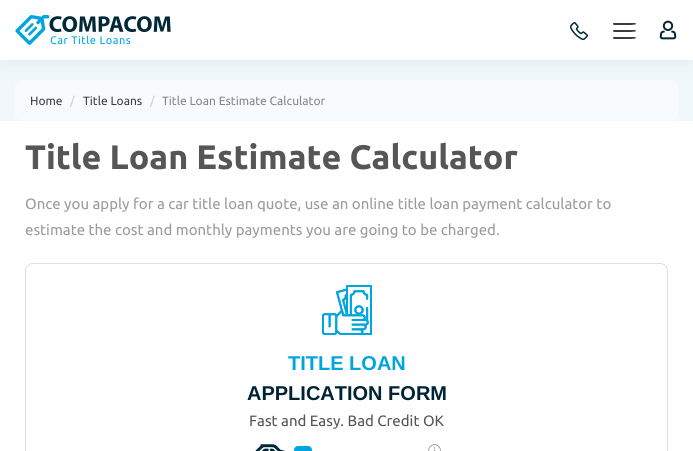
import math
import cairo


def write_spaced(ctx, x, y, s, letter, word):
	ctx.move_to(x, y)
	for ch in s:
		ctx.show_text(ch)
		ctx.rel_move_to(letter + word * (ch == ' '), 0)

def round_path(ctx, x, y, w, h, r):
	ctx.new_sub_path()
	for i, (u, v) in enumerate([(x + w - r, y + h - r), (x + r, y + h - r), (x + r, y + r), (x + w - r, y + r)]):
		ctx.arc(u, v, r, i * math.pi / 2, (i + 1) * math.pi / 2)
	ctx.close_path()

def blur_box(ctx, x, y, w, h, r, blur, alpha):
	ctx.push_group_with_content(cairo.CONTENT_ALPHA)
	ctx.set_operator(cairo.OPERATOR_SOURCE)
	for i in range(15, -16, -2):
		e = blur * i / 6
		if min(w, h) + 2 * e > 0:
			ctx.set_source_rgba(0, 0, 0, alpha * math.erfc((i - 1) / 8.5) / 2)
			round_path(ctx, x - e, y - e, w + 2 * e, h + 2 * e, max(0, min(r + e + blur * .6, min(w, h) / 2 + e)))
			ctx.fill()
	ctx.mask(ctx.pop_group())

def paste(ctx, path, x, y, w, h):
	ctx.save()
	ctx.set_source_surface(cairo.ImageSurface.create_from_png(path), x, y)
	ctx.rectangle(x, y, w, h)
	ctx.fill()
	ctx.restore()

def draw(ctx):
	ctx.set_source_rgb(0.945, 0.969, 0.988)
	ctx.paint()
	ctx.set_source_rgb(0.969, 0.984, 0.992)
	round_path(ctx, 15, 80, 663, 41, 8)
	ctx.fill()
	ctx.set_source_rgb(0.004, 0.157, 0.212)
	blur_box(ctx, 0, 4, 693, 60, 0, 10, 0.05)
	ctx.set_source_rgb(1, 1, 1)
	ctx.rectangle(0, 0, 693, 60)
	ctx.fill()
	paste(ctx, 'media/1.png', 569, 21, 20, 20)
	ctx.set_source_rgb(0.216, 0.239, 0.255)
	ctx.new_path()
	ctx.move_to(617.5, 23)
	ctx.line_to(634.5, 23)
	ctx.curve_to(640, 24.5, 631, 25, 630.5, 25)
	ctx.line_to(614, 25)
	ctx.curve_to(613, 24.5, 612.5, 23.5, 613.5, 23)
	ctx.close_path()
	ctx.move_to(617.5, 30)
	ctx.line_to(634.5, 30)
	ctx.curve_to(640, 31.5, 631, 32, 630.5, 32)
	ctx.line_to(614, 32)
	ctx.curve_to(613, 31.5, 612.5, 30.5, 613.5, 30)
	ctx.close_path()
	ctx.move_to(617.5, 37)
	ctx.line_to(634.5, 37)
	ctx.curve_to(640, 38.5, 631, 39, 630.5, 39)
	ctx.line_to(614, 39)
	ctx.curve_to(613, 38.5, 612.5, 37.5, 613.5, 37)
	ctx.close_path()
	ctx.fill()
	paste(ctx, 'media/2.png', 659, 20, 18, 20)
	paste(ctx, 'media/3.png', 15, 15, 156, 30)
	ctx.select_font_face('Ubuntu')
	ctx.set_font_size(11)
	ctx.set_source_rgb(0, 0.647, 0.878)
	write_spaced(ctx, 50, 44, 'Car Title Loans', 0.5, 0)
	ctx.set_font_size(12)
	ctx.set_source_rgb(0.231, 0.243, 0.267)
	ctx.move_to(30, 105)
	ctx.show_text('Home')
	ctx.set_source_rgb(0.8, 0.8, 0.8)
	ctx.move_to(70, 105)
	ctx.show_text('/')
	ctx.set_source_rgb(0.231, 0.243, 0.267)
	ctx.move_to(83, 105)
	ctx.show_text('Title Loans')
	ctx.set_source_rgb(0.8, 0.8, 0.8)
	ctx.move_to(150, 105)
	ctx.show_text('/')
	ctx.set_source_rgb(0.525, 0.525, 0.525)
	ctx.move_to(162, 105)
	ctx.show_text('Title Loan Estimate Calculator')
	ctx.set_source_rgb(1, 1, 1)
	ctx.rectangle(0, 121, 693, 330)
	ctx.fill()
	ctx.select_font_face('Ubuntu', cairo.FONT_SLANT_NORMAL, cairo.FONT_WEIGHT_BOLD)
	ctx.set_font_size(34)
	ctx.set_source_rgb(0.337, 0.337, 0.337)
	ctx.move_to(25, 169)
	ctx.show_text('Title Loan Estimate Calculator')
	ctx.select_font_face('Ubuntu')
	ctx.set_font_size(15)
	ctx.set_source_rgb(0.612, 0.604, 0.604)
	ctx.move_to(25, 209)
	ctx.show_text('Once you apply for a car title loan quote, use an online title loan payment calculator to')
	ctx.move_to(25, 235)
	ctx.show_text('estimate the cost and monthly payments you are going to be charged.')
	round_path(ctx, 25.5, 263.5, 642, 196, 7.5)
	ctx.set_source_rgb(0.871, 0.871, 0.871)
	ctx.set_line_width(1)
	ctx.stroke()
	paste(ctx, 'media/4.png', 322, 285, 50, 50)
	paste(ctx, 'media/5.png', 322, 285, 50, 50)
	ctx.select_font_face('Liberation Sans', cairo.FONT_SLANT_NORMAL, cairo.FONT_WEIGHT_BOLD)
	ctx.set_font_size(20)
	ctx.set_source_rgb(0, 0.647, 0.878)
	ctx.move_to(288, 370)
	ctx.show_text('TITLE LOAN')
	ctx.set_source_rgb(0, 0.137, 0.2)
	ctx.move_to(247, 400)
	ctx.show_text('APPLICATION FORM')
	ctx.select_font_face('Ubuntu')
	ctx.set_font_size(15)
	ctx.set_source_rgb(0.337, 0.337, 0.337)
	ctx.move_to(249, 426)
	ctx.show_text('Fast and Easy. Bad Credit OK')
	paste(ctx, 'media/6.png', 255, 444, 30, 7)
	ctx.set_source_rgb(0, 0.647, 0.878)
	round_path(ctx, 295, 447, 16, 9, 3)
	ctx.fill_preserve()
	ctx.set_line_width(2)
	ctx.stroke()
	paste(ctx, 'media/7.png', 428, 444, 13, 7)


surface = cairo.ImageSurface(cairo.FORMAT_RGB24, 693, 451)
ctx = cairo.Context(surface)
options = cairo.FontOptions()
options.set_hint_metrics(cairo.HINT_METRICS_OFF)
options.set_hint_style(cairo.HINT_STYLE_NONE)
ctx.set_font_options(options)
ctx.set_miter_limit(4)
draw(ctx)
surface.write_to_png('image.png')
